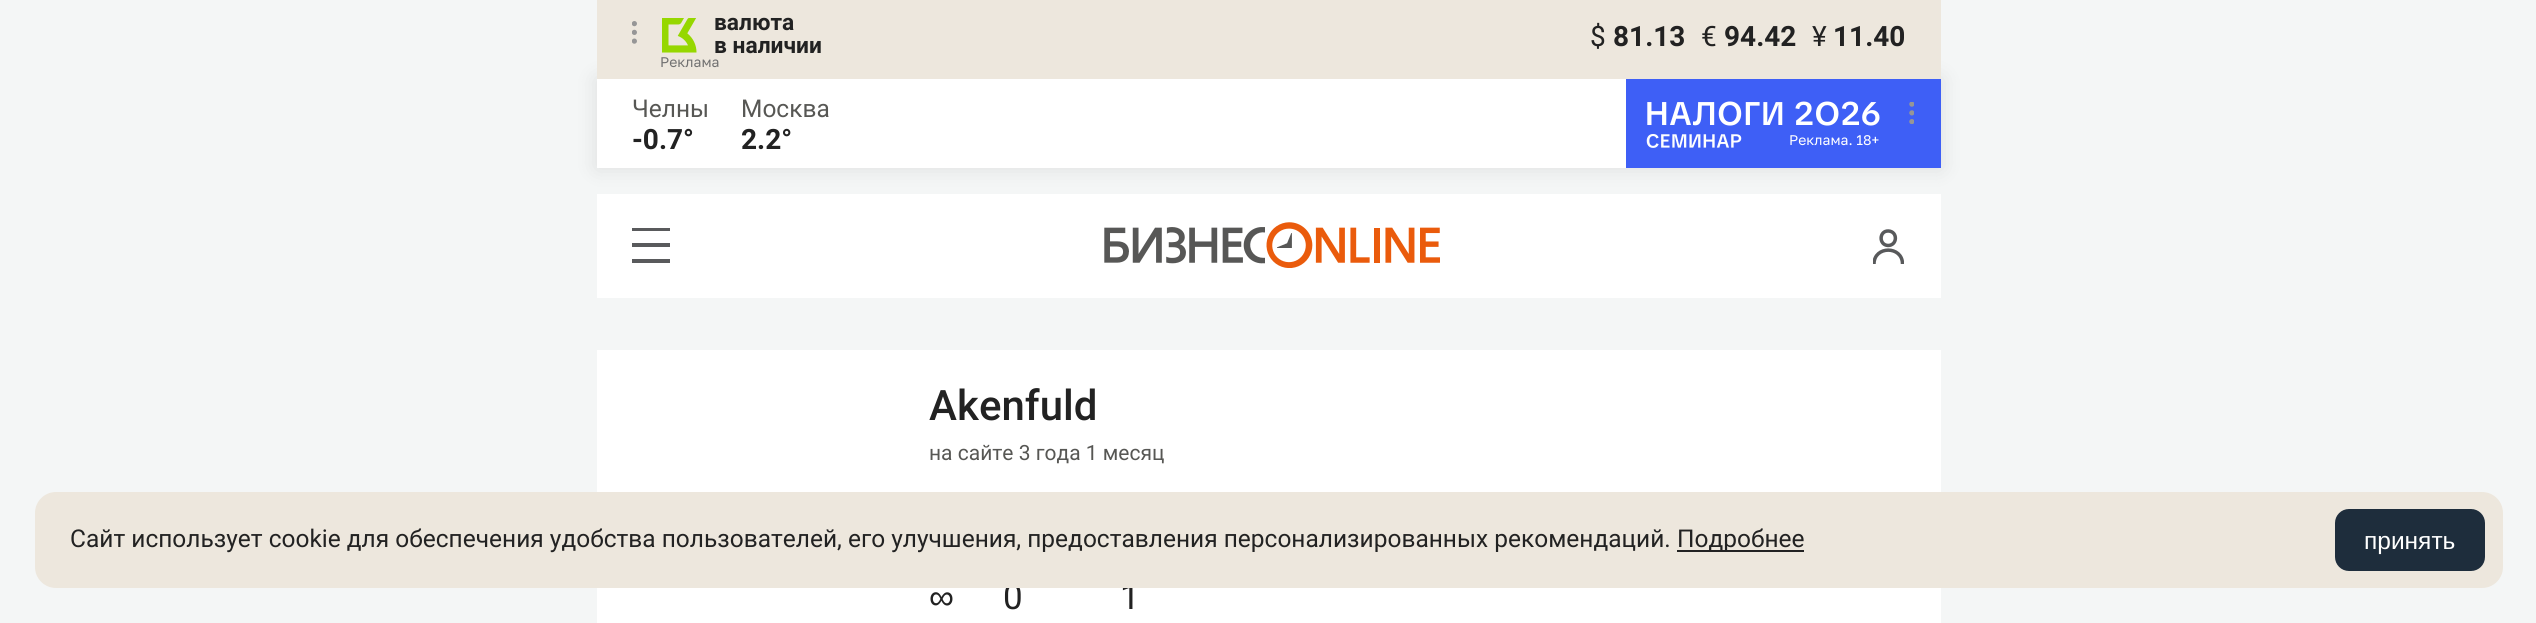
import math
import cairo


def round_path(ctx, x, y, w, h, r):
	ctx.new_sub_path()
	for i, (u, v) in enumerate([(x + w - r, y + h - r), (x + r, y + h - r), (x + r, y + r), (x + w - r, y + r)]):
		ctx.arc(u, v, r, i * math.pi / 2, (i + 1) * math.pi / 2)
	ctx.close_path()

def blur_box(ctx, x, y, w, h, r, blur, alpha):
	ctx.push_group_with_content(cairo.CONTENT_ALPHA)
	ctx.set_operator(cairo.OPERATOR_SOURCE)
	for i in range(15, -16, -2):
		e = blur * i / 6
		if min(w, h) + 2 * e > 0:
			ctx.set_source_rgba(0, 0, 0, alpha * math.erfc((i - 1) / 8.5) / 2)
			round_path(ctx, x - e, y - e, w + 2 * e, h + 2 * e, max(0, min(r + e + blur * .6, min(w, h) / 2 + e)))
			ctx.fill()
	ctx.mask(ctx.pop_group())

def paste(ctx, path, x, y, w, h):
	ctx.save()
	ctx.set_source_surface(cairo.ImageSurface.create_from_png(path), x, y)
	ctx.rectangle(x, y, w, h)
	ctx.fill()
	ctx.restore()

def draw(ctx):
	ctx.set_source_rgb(0.957, 0.961, 0.961)
	ctx.paint()
	ctx.set_source_rgb(0, 0, 0)
	blur_box(ctx, 597, 79, 1344, 89, 0, 10.5, 0.1)
	ctx.set_source_rgb(0.929, 0.906, 0.867)
	ctx.rectangle(597, 0, 1344, 79)
	ctx.fill()
	paste(ctx, 'media/1.png', 632, 21, 5, 23)
	paste(ctx, 'media/2.png', 662, 18, 35, 35)
	ctx.select_font_face('Roboto', cairo.FONT_SLANT_NORMAL, cairo.FONT_WEIGHT_BOLD)
	ctx.set_font_size(22.75)
	ctx.set_source_rgb(0.133, 0.133, 0.133)
	ctx.move_to(714, 30)
	ctx.show_text('валюта')
	ctx.move_to(714, 53)
	ctx.show_text('в наличии')
	ctx.select_font_face('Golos')
	ctx.set_font_size(14)
	ctx.set_source_rgb(0.443, 0.443, 0.443)
	ctx.move_to(660, 67)
	ctx.show_text('Реклама')
	ctx.select_font_face('Roboto')
	ctx.set_font_size(28)
	ctx.set_source_rgb(0.133, 0.133, 0.133)
	ctx.move_to(1590, 46)
	ctx.show_text('$')
	ctx.select_font_face('Roboto', cairo.FONT_SLANT_NORMAL, cairo.FONT_WEIGHT_BOLD)
	ctx.move_to(1613, 46)
	ctx.show_text('81.13')
	ctx.select_font_face('Roboto')
	ctx.move_to(1701, 46)
	ctx.show_text('€')
	ctx.select_font_face('Roboto', cairo.FONT_SLANT_NORMAL, cairo.FONT_WEIGHT_BOLD)
	ctx.move_to(1724, 46)
	ctx.show_text('94.42')
	ctx.select_font_face('Roboto')
	ctx.move_to(1812, 46)
	ctx.show_text('¥')
	ctx.select_font_face('Roboto', cairo.FONT_SLANT_NORMAL, cairo.FONT_WEIGHT_BOLD)
	ctx.move_to(1833, 46)
	ctx.show_text('11.40')
	ctx.set_source_rgb(1, 1, 1)
	ctx.rectangle(597, 79, 1029, 89)
	ctx.fill()
	ctx.select_font_face('Roboto')
	ctx.set_font_size(24.5)
	ctx.set_source_rgb(0.341, 0.341, 0.329)
	ctx.move_to(632, 117)
	ctx.show_text('Челны')
	ctx.select_font_face('Roboto', cairo.FONT_SLANT_NORMAL, cairo.FONT_WEIGHT_BOLD)
	ctx.set_font_size(28)
	ctx.set_source_rgb(0.133, 0.133, 0.133)
	ctx.move_to(632, 149)
	ctx.show_text('-0.7°')
	ctx.select_font_face('Roboto')
	ctx.set_font_size(24.5)
	ctx.set_source_rgb(0.341, 0.341, 0.329)
	ctx.move_to(741, 117)
	ctx.show_text('Москва')
	ctx.select_font_face('Roboto', cairo.FONT_SLANT_NORMAL, cairo.FONT_WEIGHT_BOLD)
	ctx.set_font_size(28)
	ctx.set_source_rgb(0.133, 0.133, 0.133)
	ctx.move_to(741, 149)
	ctx.show_text('2.2°')
	paste(ctx, 'media/3.png', 1626, 79, 315, 89)
	paste(ctx, 'media/4.png', 1909, 102, 5, 22)
	ctx.select_font_face('Golos')
	ctx.set_font_size(14)
	ctx.set_source_rgb(1, 1, 1)
	ctx.move_to(1789, 145)
	ctx.show_text('Реклама. 18+')
	ctx.rectangle(597, 194, 1344, 104)
	ctx.fill()
	ctx.set_source_rgb(0.349, 0.353, 0.361)
	ctx.rectangle(632, 228, 38, 35)
	ctx.fill()
	ctx.set_source_rgb(1, 1, 1)
	ctx.rectangle(632, 231, 38, 12)
	ctx.rectangle(632, 247, 38, 12)
	ctx.fill()
	paste(ctx, 'media/5.png', 1104, 222, 336, 46)
	ctx.save()
	ctx.rectangle(1873, 229, 31, 35)
	ctx.clip()
	ctx.new_path()
	ctx.move_to(1902.5, 264)
	ctx.curve_to(1902.5, 245.5, 1874, 245.5, 1874, 264)
	ctx.set_source_rgb(0.345, 0.349, 0.357)
	ctx.set_line_width(3.5)
	ctx.stroke()
	ctx.restore()
	ctx.new_path()
	ctx.move_to(1888, 245.5)
	ctx.curve_to(1897.5, 245.5, 1898, 231.5, 1888.5, 231)
	ctx.curve_to(1879, 230.5, 1878.5, 245, 1888, 245.5)
	ctx.close_path()
	ctx.set_source_rgb(0.345, 0.349, 0.357)
	ctx.set_line_width(3.5)
	ctx.stroke()
	ctx.set_source_rgb(1, 1, 1)
	ctx.rectangle(597, 350, 1344, 273)
	ctx.fill()
	ctx.select_font_face('Roboto Medium')
	ctx.set_font_size(42)
	ctx.set_source_rgb(0.133, 0.133, 0.133)
	ctx.move_to(929, 420)
	ctx.show_text('Akenfuld')
	ctx.select_font_face('Roboto')
	ctx.set_font_size(21)
	ctx.set_source_rgb(0.341, 0.341, 0.329)
	ctx.move_to(929, 460)
	ctx.show_text('на сайте 3 года 1 месяц')
	ctx.select_font_face('Liberation Sans')
	ctx.set_font_size(35)
	ctx.set_source_rgb(0.133, 0.133, 0.133)
	ctx.move_to(929, 609)
	ctx.show_text('∞')
	ctx.select_font_face('Roboto')
	ctx.move_to(1003, 609)
	ctx.show_text('0')
	ctx.move_to(1120, 609)
	ctx.show_text('1')
	ctx.set_source_rgb(0.929, 0.906, 0.867)
	round_path(ctx, 35, 492, 2468, 96, 21)
	ctx.fill()
	ctx.set_font_size(24.5)
	ctx.set_source_rgb(0.133, 0.133, 0.133)
	ctx.move_to(70, 547)
	ctx.show_text('Сайт использует cookie для обеспечения удобства пользователей, его улучшения, предоставления персонализированных рекомендаций.')
	ctx.rectangle(1677, 550, 127, 2)
	ctx.fill()
	ctx.move_to(1677, 547)
	ctx.show_text('Подробнее')
	ctx.set_source_rgb(0.118, 0.176, 0.235)
	round_path(ctx, 2335, 509, 150, 62, 14)
	ctx.fill()
	ctx.select_font_face('Liberation Sans')
	ctx.set_source_rgb(1, 1, 1)
	ctx.move_to(2364, 549)
	ctx.show_text('принять')


surface = cairo.ImageSurface(cairo.FORMAT_RGB24, 2536, 623)
ctx = cairo.Context(surface)
options = cairo.FontOptions()
options.set_hint_metrics(cairo.HINT_METRICS_OFF)
options.set_hint_style(cairo.HINT_STYLE_NONE)
ctx.set_font_options(options)
ctx.set_miter_limit(4)
draw(ctx)
surface.write_to_png('image.png')
